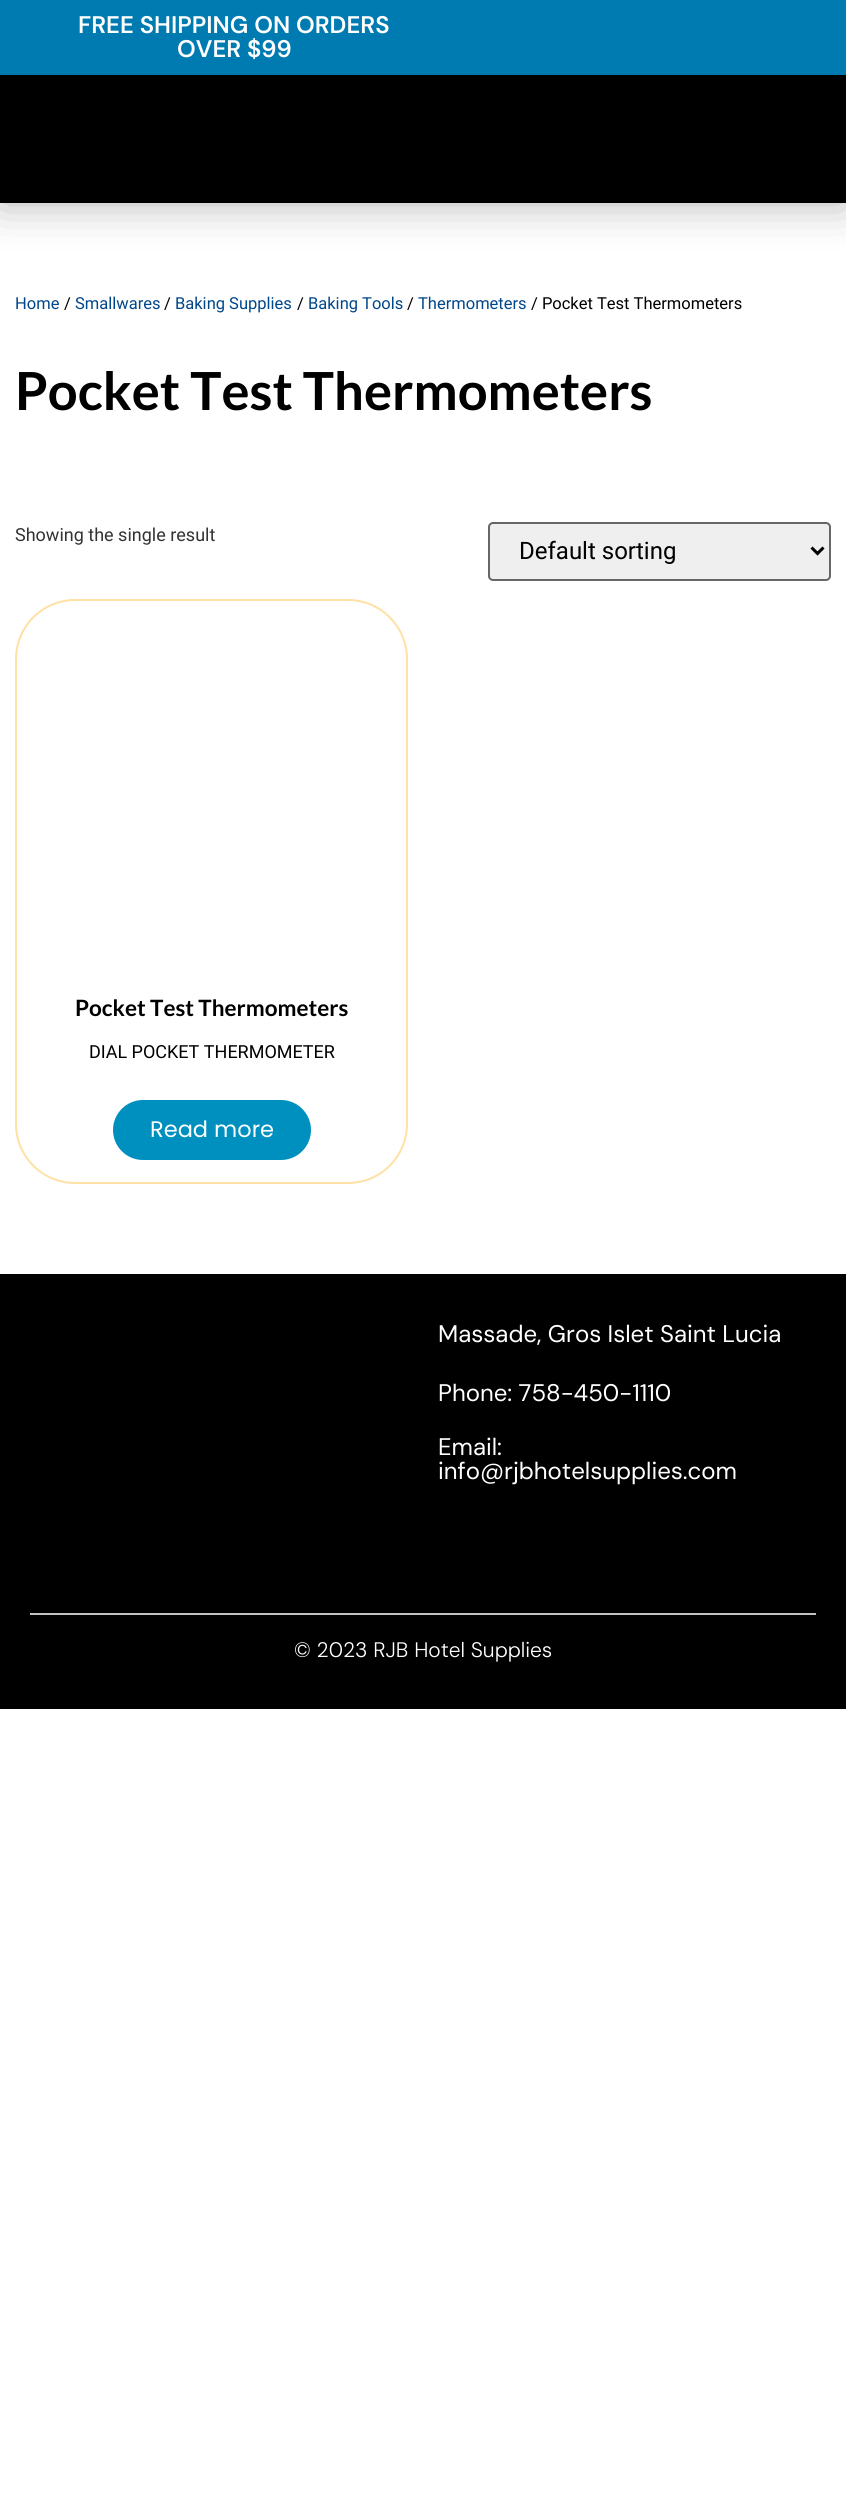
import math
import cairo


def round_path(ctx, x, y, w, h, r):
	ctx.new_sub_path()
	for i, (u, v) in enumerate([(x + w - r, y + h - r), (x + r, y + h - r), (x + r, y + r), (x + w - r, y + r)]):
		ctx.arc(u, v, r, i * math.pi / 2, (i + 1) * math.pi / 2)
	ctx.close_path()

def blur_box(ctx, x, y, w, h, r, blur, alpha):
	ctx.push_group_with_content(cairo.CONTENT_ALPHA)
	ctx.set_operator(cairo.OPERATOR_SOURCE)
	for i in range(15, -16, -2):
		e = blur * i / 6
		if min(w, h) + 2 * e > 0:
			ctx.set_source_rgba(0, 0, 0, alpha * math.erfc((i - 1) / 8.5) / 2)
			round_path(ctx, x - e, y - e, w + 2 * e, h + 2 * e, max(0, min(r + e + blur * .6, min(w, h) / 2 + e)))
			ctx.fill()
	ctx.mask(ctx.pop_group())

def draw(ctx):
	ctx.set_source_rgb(1, 1, 1)
	ctx.paint()
	ctx.set_source_rgb(0, 0, 0)
	blur_box(ctx, 0, 75, 846, 128, 0, 22.5, 0.3)
	ctx.set_source_rgb(0, 0, 0)
	ctx.rectangle(0, 75, 846, 128)
	ctx.fill()
	ctx.set_source_rgb(0, 0.482, 0.694)
	ctx.rectangle(0, 0, 846, 75)
	ctx.fill()
	ctx.select_font_face('DM Sans SemiBold')
	ctx.set_font_size(24)
	ctx.set_source_rgb(1, 1, 1)
	ctx.move_to(78, 33)
	ctx.show_text('FREE SHIPPING ON ORDERS')
	ctx.move_to(177, 57)
	ctx.show_text('OVER $99')
	ctx.select_font_face('Roboto')
	ctx.set_font_size(16.5)
	ctx.set_source_rgb(0, 0.278, 0.541)
	ctx.move_to(15, 309)
	ctx.show_text('Home')
	ctx.set_source_rgb(0, 0, 0)
	ctx.move_to(64, 309)
	ctx.show_text('/')
	ctx.set_source_rgb(0, 0.278, 0.541)
	ctx.move_to(75, 309)
	ctx.show_text('Smallwares')
	ctx.set_source_rgb(0, 0, 0)
	ctx.move_to(164, 309)
	ctx.show_text('/')
	ctx.set_source_rgb(0, 0.278, 0.541)
	ctx.move_to(175, 309)
	ctx.show_text('Baking Supplies')
	ctx.set_source_rgb(0, 0, 0)
	ctx.move_to(297, 309)
	ctx.show_text('/')
	ctx.set_source_rgb(0, 0.278, 0.541)
	ctx.move_to(308, 309)
	ctx.show_text('Baking Tools')
	ctx.set_source_rgb(0, 0, 0)
	ctx.move_to(407, 309)
	ctx.show_text('/')
	ctx.set_source_rgb(0, 0.278, 0.541)
	ctx.move_to(418, 309)
	ctx.show_text('Thermometers')
	ctx.set_source_rgb(0, 0, 0)
	ctx.move_to(531, 309)
	ctx.show_text('/ Pocket Test Thermometers')
	ctx.select_font_face('Lato', cairo.FONT_SLANT_NORMAL, cairo.FONT_WEIGHT_BOLD)
	ctx.set_font_size(52.5)
	ctx.move_to(15, 410)
	ctx.show_text('Pocket Test Thermometers')
	ctx.select_font_face('Roboto')
	ctx.set_font_size(18)
	ctx.set_source_rgb(0.2, 0.2, 0.2)
	ctx.move_to(15, 541)
	ctx.show_text('Showing the single result')
	ctx.set_source_rgb(0.937, 0.937, 0.937)
	round_path(ctx, 489, 523, 341, 57, 4)
	ctx.fill_preserve()
	ctx.set_source_rgb(0.4, 0.4, 0.4)
	ctx.stroke()
	ctx.new_path()
	ctx.move_to(811.5, 547.5)
	ctx.line_to(817.5, 553.5)
	ctx.line_to(823.5, 547.5)
	ctx.set_source_rgb(0, 0, 0)
	ctx.set_line_width(3)
	ctx.stroke()
	ctx.set_font_size(24)
	ctx.move_to(519, 559)
	ctx.show_text('Default sorting')
	round_path(ctx, 16, 600, 391, 583, 59)
	ctx.set_source_rgb(1, 0.882, 0.647)
	ctx.set_line_width(2)
	ctx.stroke()
	ctx.select_font_face('Lato', cairo.FONT_SLANT_NORMAL, cairo.FONT_WEIGHT_BOLD)
	ctx.set_font_size(22.5)
	ctx.set_source_rgb(0, 0, 0)
	ctx.move_to(75, 1016)
	ctx.show_text('Pocket Test Thermometers')
	ctx.select_font_face('Roboto')
	ctx.set_font_size(18)
	ctx.move_to(89, 1058)
	ctx.show_text('DIAL POCKET THERMOMETER')
	ctx.set_source_rgb(0, 0.565, 0.753)
	round_path(ctx, 113, 1100, 198, 60, 30)
	ctx.fill()
	ctx.select_font_face('Poppins')
	ctx.set_font_size(22.5)
	ctx.set_source_rgb(1, 1, 1)
	ctx.move_to(150, 1137)
	ctx.show_text('Read more')
	ctx.set_source_rgb(0, 0, 0)
	ctx.rectangle(0, 1274, 846, 435)
	ctx.fill()
	ctx.select_font_face('DM Sans')
	ctx.set_font_size(24)
	ctx.set_source_rgb(1, 1, 1)
	for x, y, s in [
		(438, 1342, 'Massade, Gros Islet Saint Lucia'),
		(438, 1401, 'Phone: 758-450-1110'),
		(438, 1455, 'Email:'),
		(438, 1479, 'info@rjbhotelsupplies.com'),
	]:
		ctx.move_to(x, y)
		ctx.show_text(s)
	ctx.set_source_rgb(0.761, 0.761, 0.761)
	ctx.rectangle(30, 1613, 786, 2)
	ctx.fill()
	ctx.select_font_face('DM Sans Light')
	ctx.set_font_size(21)
	ctx.set_source_rgb(1, 1, 1)
	ctx.move_to(294, 1657)
	ctx.show_text('© 2023 RJB Hotel Supplies')


surface = cairo.ImageSurface(cairo.FORMAT_RGB24, 846, 2504)
ctx = cairo.Context(surface)
options = cairo.FontOptions()
options.set_hint_metrics(cairo.HINT_METRICS_OFF)
options.set_hint_style(cairo.HINT_STYLE_NONE)
ctx.set_font_options(options)
ctx.set_miter_limit(4)
draw(ctx)
surface.write_to_png('image.png')
